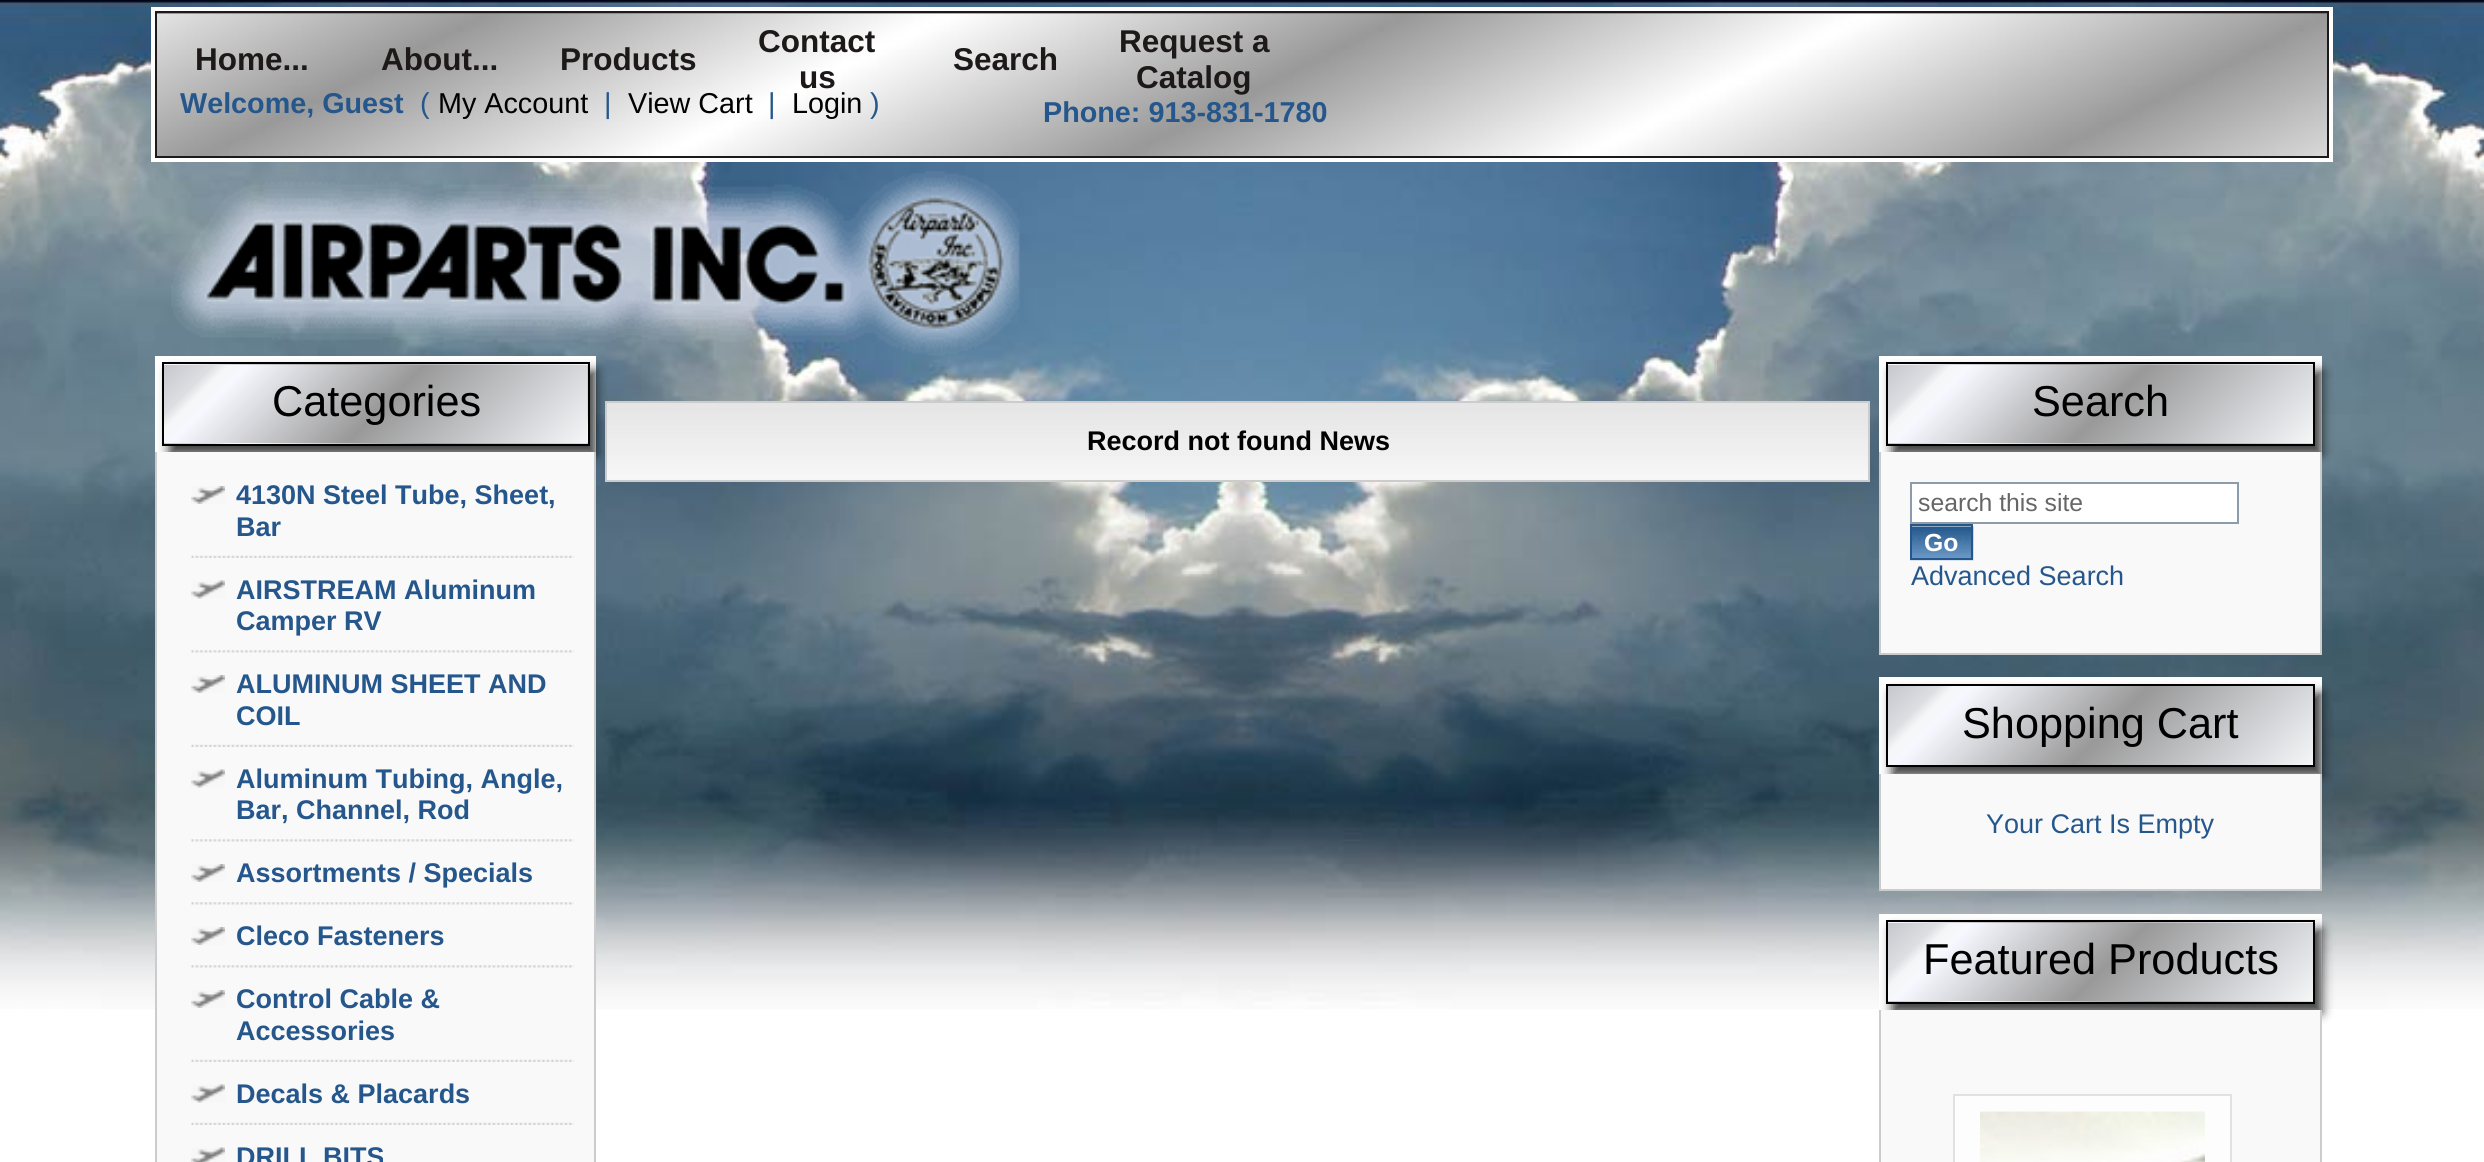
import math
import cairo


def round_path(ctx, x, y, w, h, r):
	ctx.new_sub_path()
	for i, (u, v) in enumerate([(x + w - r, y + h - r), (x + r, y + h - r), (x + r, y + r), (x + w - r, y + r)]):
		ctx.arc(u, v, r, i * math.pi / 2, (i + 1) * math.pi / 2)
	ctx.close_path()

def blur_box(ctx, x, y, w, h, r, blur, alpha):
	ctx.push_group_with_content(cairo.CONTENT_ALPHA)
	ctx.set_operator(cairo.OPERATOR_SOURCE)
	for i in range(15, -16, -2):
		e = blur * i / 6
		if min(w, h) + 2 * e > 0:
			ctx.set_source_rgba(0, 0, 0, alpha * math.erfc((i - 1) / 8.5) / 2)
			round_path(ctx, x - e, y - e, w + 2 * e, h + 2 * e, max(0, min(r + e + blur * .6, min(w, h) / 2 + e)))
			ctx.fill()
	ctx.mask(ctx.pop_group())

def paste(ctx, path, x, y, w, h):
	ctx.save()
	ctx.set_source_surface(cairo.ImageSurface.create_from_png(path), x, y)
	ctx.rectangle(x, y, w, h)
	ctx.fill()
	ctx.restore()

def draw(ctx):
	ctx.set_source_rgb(1, 1, 1)
	ctx.paint()
	paste(ctx, 'media/1.png', 0, 0, 2484, 1009)
	ctx.rectangle(153.5, 9.5, 2177, 150)
	ctx.set_source_rgb(1, 1, 1)
	ctx.set_line_width(5)
	ctx.stroke()
	paste(ctx, 'media/2.png', 157, 13, 2170, 143)
	ctx.rectangle(156, 12, 2172, 145)
	ctx.set_source_rgb(0.118, 0.102, 0.098)
	ctx.set_line_width(2)
	ctx.stroke()
	ctx.select_font_face('Liberation Sans', cairo.FONT_SLANT_NORMAL, cairo.FONT_WEIGHT_BOLD)
	ctx.set_font_size(31.5)
	ctx.set_source_rgb(0.118, 0.098, 0.098)
	for x, y, s in [
		(195, 70, 'Home...'),
		(381, 70, 'About...'),
		(560, 70, 'Products'),
		(758, 52, 'Contact'),
		(799, 88, 'us'),
		(953, 70, 'Search'),
		(1119, 52, 'Request a'),
		(1136, 88, 'Catalog'),
	]:
		ctx.move_to(x, y)
		ctx.show_text(s)
	ctx.set_font_size(28.75)
	ctx.set_source_rgb(0.145, 0.341, 0.549)
	ctx.move_to(180, 113)
	ctx.show_text('Welcome, Guest')
	ctx.select_font_face('Liberation Sans')
	ctx.move_to(420, 113)
	ctx.show_text('(')
	ctx.set_source_rgb(0, 0, 0)
	ctx.move_to(438, 113)
	ctx.show_text('My Account')
	ctx.set_source_rgb(0.145, 0.341, 0.549)
	ctx.move_to(604, 113)
	ctx.show_text('|')
	ctx.set_source_rgb(0, 0, 0)
	ctx.move_to(628, 113)
	ctx.show_text('View Cart')
	ctx.set_source_rgb(0.145, 0.341, 0.549)
	ctx.move_to(768, 113)
	ctx.show_text('|')
	ctx.set_source_rgb(0, 0, 0)
	ctx.move_to(792, 113)
	ctx.show_text('Login')
	ctx.set_source_rgb(0.145, 0.341, 0.549)
	ctx.move_to(870, 113)
	ctx.show_text(')')
	ctx.select_font_face('Liberation Sans', cairo.FONT_SLANT_NORMAL, cairo.FONT_WEIGHT_BOLD)
	ctx.move_to(1043, 122)
	ctx.show_text('Phone: 913-831-1780')
	paste(ctx, 'media/3.png', 171, 171, 849, 185)
	ctx.set_source_rgb(1, 1, 1)
	ctx.rectangle(155, 356, 441, 96)
	ctx.fill()
	ctx.set_source_rgb(0, 0, 0)
	blur_box(ctx, 169, 371, 427, 84, 0, 5.5, 0.75)
	gradient = cairo.LinearGradient(250, 200, 501, 451)
	gradient.add_color_stop_rgba(0, 0.773, 0.78, 0.8, 1)
	gradient.add_color_stop_rgba(0.1, 0.863, 0.871, 0.886, 1)
	gradient.add_color_stop_rgba(0.13, 0.961, 0.965, 0.965, 1)
	gradient.add_color_stop_rgba(0.17, 0.969, 0.973, 1, 1)
	gradient.add_color_stop_rgba(0.52, 0.6, 0.6, 0.6, 1)
	gradient.add_color_stop_rgba(0.88, 0.867, 0.875, 0.89, 1)
	gradient.add_color_stop_rgba(1, 0.961, 0.965, 0.965, 1)
	ctx.set_source(gradient)
	ctx.rectangle(164, 364, 423, 1)
	ctx.fill()
	gradient = cairo.LinearGradient(673, 200, 924, 451)
	gradient.add_color_stop_rgba(0, 0.773, 0.78, 0.8, 1)
	gradient.add_color_stop_rgba(0.1, 0.863, 0.871, 0.886, 1)
	gradient.add_color_stop_rgba(0.13, 0.961, 0.965, 0.965, 1)
	gradient.add_color_stop_rgba(0.17, 0.969, 0.973, 1, 1)
	gradient.add_color_stop_rgba(0.52, 0.6, 0.6, 0.6, 1)
	gradient.add_color_stop_rgba(0.88, 0.867, 0.875, 0.89, 1)
	gradient.add_color_stop_rgba(1, 0.961, 0.965, 0.965, 1)
	ctx.set_source(gradient)
	ctx.rectangle(587, 364, 3, 1)
	ctx.fill()
	gradient = cairo.LinearGradient(250, 278, 501, 529)
	gradient.add_color_stop_rgba(0, 0.773, 0.78, 0.8, 1)
	gradient.add_color_stop_rgba(0.1, 0.863, 0.871, 0.886, 1)
	gradient.add_color_stop_rgba(0.13, 0.961, 0.965, 0.965, 1)
	gradient.add_color_stop_rgba(0.17, 0.969, 0.973, 1, 1)
	gradient.add_color_stop_rgba(0.52, 0.6, 0.6, 0.6, 1)
	gradient.add_color_stop_rgba(0.88, 0.867, 0.875, 0.89, 1)
	gradient.add_color_stop_rgba(1, 0.961, 0.965, 0.965, 1)
	ctx.set_source(gradient)
	ctx.rectangle(164, 365, 423, 78)
	ctx.fill()
	gradient = cairo.LinearGradient(673, 278, 924, 529)
	gradient.add_color_stop_rgba(0, 0.773, 0.78, 0.8, 1)
	gradient.add_color_stop_rgba(0.1, 0.863, 0.871, 0.886, 1)
	gradient.add_color_stop_rgba(0.13, 0.961, 0.965, 0.965, 1)
	gradient.add_color_stop_rgba(0.17, 0.969, 0.973, 1, 1)
	gradient.add_color_stop_rgba(0.52, 0.6, 0.6, 0.6, 1)
	gradient.add_color_stop_rgba(0.88, 0.867, 0.875, 0.89, 1)
	gradient.add_color_stop_rgba(1, 0.961, 0.965, 0.965, 1)
	ctx.set_source(gradient)
	ctx.rectangle(587, 365, 1, 78)
	ctx.fill()
	gradient = cairo.LinearGradient(250, 357, 501, 608)
	gradient.add_color_stop_rgba(0, 0.773, 0.78, 0.8, 1)
	gradient.add_color_stop_rgba(0.1, 0.863, 0.871, 0.886, 1)
	gradient.add_color_stop_rgba(0.13, 0.961, 0.965, 0.965, 1)
	gradient.add_color_stop_rgba(0.17, 0.969, 0.973, 1, 1)
	gradient.add_color_stop_rgba(0.52, 0.6, 0.6, 0.6, 1)
	gradient.add_color_stop_rgba(0.88, 0.867, 0.875, 0.89, 1)
	gradient.add_color_stop_rgba(1, 0.961, 0.965, 0.965, 1)
	ctx.set_source(gradient)
	ctx.rectangle(164, 443, 423, 1)
	ctx.fill()
	gradient = cairo.LinearGradient(673, 357, 924, 608)
	gradient.add_color_stop_rgba(0, 0.773, 0.78, 0.8, 1)
	gradient.add_color_stop_rgba(0.1, 0.863, 0.871, 0.886, 1)
	gradient.add_color_stop_rgba(0.13, 0.961, 0.965, 0.965, 1)
	gradient.add_color_stop_rgba(0.17, 0.969, 0.973, 1, 1)
	gradient.add_color_stop_rgba(0.52, 0.6, 0.6, 0.6, 1)
	gradient.add_color_stop_rgba(0.88, 0.867, 0.875, 0.89, 1)
	gradient.add_color_stop_rgba(1, 0.961, 0.965, 0.965, 1)
	ctx.set_source(gradient)
	ctx.rectangle(587, 443, 3, 1)
	ctx.fill()
	ctx.rectangle(163, 363, 426, 82)
	ctx.set_source_rgb(0, 0, 0)
	ctx.stroke()
	ctx.select_font_face('Liberation Sans')
	ctx.set_font_size(43.25)
	ctx.move_to(272, 416)
	ctx.show_text('Categories')
	ctx.set_source_rgb(0.973, 0.973, 0.973)
	ctx.rectangle(157, 452, 437, 710)
	ctx.fill()
	ctx.set_source_rgb(0.8, 0.8, 0.8)
	ctx.rectangle(594, 452, 2, 710)
	ctx.rectangle(155, 452, 2, 710)
	ctx.fill()
	paste(ctx, 'media/4.png', 191, 555, 383, 3)
	paste(ctx, 'media/5.png', 191, 486, 34, 18)
	ctx.select_font_face('Liberation Sans', cairo.FONT_SLANT_NORMAL, cairo.FONT_WEIGHT_BOLD)
	ctx.set_font_size(27)
	ctx.set_source_rgb(0.145, 0.341, 0.549)
	ctx.move_to(236, 504)
	ctx.show_text('4130N Steel Tube, Sheet,')
	ctx.move_to(236, 536)
	ctx.show_text('Bar')
	paste(ctx, 'media/6.png', 191, 650, 383, 3)
	paste(ctx, 'media/7.png', 191, 580, 34, 19)
	ctx.move_to(236, 599)
	ctx.show_text('AIRSTREAM Aluminum')
	ctx.move_to(236, 630)
	ctx.show_text('Camper RV')
	paste(ctx, 'media/4.png', 191, 744, 383, 3)
	paste(ctx, 'media/5.png', 191, 675, 34, 18)
	ctx.move_to(236, 693)
	ctx.show_text('ALUMINUM SHEET AND')
	ctx.move_to(236, 725)
	ctx.show_text('COIL')
	paste(ctx, 'media/6.png', 191, 839, 383, 3)
	paste(ctx, 'media/7.png', 191, 769, 34, 19)
	ctx.move_to(236, 788)
	ctx.show_text('Aluminum Tubing, Angle,')
	ctx.move_to(236, 819)
	ctx.show_text('Bar, Channel, Rod')
	paste(ctx, 'media/6.png', 191, 902, 383, 3)
	paste(ctx, 'media/5.png', 191, 864, 34, 18)
	ctx.move_to(236, 882)
	ctx.show_text('Assortments / Specials')
	paste(ctx, 'media/6.png', 191, 965, 383, 3)
	paste(ctx, 'media/5.png', 191, 927, 34, 18)
	ctx.move_to(236, 945)
	ctx.show_text('Cleco Fasteners')
	paste(ctx, 'media/4.png', 191, 1059, 383, 3)
	paste(ctx, 'media/5.png', 191, 990, 34, 18)
	ctx.move_to(236, 1008)
	ctx.show_text('Control Cable &')
	ctx.move_to(236, 1040)
	ctx.show_text('Accessories')
	paste(ctx, 'media/4.png', 191, 1122, 383, 3)
	paste(ctx, 'media/7.png', 191, 1084, 34, 19)
	ctx.move_to(236, 1103)
	ctx.show_text('Decals & Placards')
	paste(ctx, 'media/8.png', 191, 1147, 34, 15)
	ctx.move_to(236, 1166)
	ctx.show_text('DRILL BITS')
	paste(ctx, 'media/9.png', 607, 403, 1261, 77)
	ctx.rectangle(606, 402, 1263, 79)
	ctx.set_source_rgb(0.8, 0.8, 0.8)
	ctx.stroke()
	ctx.set_source_rgb(0, 0, 0)
	ctx.move_to(1087, 450)
	ctx.show_text('Record not found News')
	ctx.set_source_rgb(1, 1, 1)
	ctx.rectangle(1879, 356, 443, 96)
	ctx.fill()
	ctx.set_source_rgb(0, 0, 0)
	blur_box(ctx, 1892, 371, 430, 84, 0, 5.5, 0.75)
	gradient = cairo.LinearGradient(1974, 199, 2226, 451)
	gradient.add_color_stop_rgba(0, 0.773, 0.78, 0.8, 1)
	gradient.add_color_stop_rgba(0.1, 0.863, 0.871, 0.886, 1)
	gradient.add_color_stop_rgba(0.13, 0.961, 0.965, 0.965, 1)
	gradient.add_color_stop_rgba(0.17, 0.969, 0.973, 1, 1)
	gradient.add_color_stop_rgba(0.52, 0.6, 0.6, 0.6, 1)
	gradient.add_color_stop_rgba(0.88, 0.867, 0.875, 0.89, 1)
	gradient.add_color_stop_rgba(1, 0.961, 0.965, 0.965, 1)
	ctx.set_source(gradient)
	ctx.rectangle(1888, 364, 425, 1)
	ctx.fill()
	gradient = cairo.LinearGradient(1974, 278, 2226, 530)
	gradient.add_color_stop_rgba(0, 0.773, 0.78, 0.8, 1)
	gradient.add_color_stop_rgba(0.1, 0.863, 0.871, 0.886, 1)
	gradient.add_color_stop_rgba(0.13, 0.961, 0.965, 0.965, 1)
	gradient.add_color_stop_rgba(0.17, 0.969, 0.973, 1, 1)
	gradient.add_color_stop_rgba(0.52, 0.6, 0.6, 0.6, 1)
	gradient.add_color_stop_rgba(0.88, 0.867, 0.875, 0.89, 1)
	gradient.add_color_stop_rgba(1, 0.961, 0.965, 0.965, 1)
	ctx.set_source(gradient)
	ctx.rectangle(1888, 365, 425, 78)
	ctx.fill()
	gradient = cairo.LinearGradient(1974, 357, 2226, 609)
	gradient.add_color_stop_rgba(0, 0.773, 0.78, 0.8, 1)
	gradient.add_color_stop_rgba(0.1, 0.863, 0.871, 0.886, 1)
	gradient.add_color_stop_rgba(0.13, 0.961, 0.965, 0.965, 1)
	gradient.add_color_stop_rgba(0.17, 0.969, 0.973, 1, 1)
	gradient.add_color_stop_rgba(0.52, 0.6, 0.6, 0.6, 1)
	gradient.add_color_stop_rgba(0.88, 0.867, 0.875, 0.89, 1)
	gradient.add_color_stop_rgba(1, 0.961, 0.965, 0.965, 1)
	ctx.set_source(gradient)
	ctx.rectangle(1888, 443, 425, 1)
	ctx.fill()
	ctx.rectangle(1887, 363, 427, 82)
	ctx.set_source_rgb(0, 0, 0)
	ctx.stroke()
	ctx.select_font_face('Liberation Sans')
	ctx.set_font_size(43.25)
	ctx.move_to(2032, 416)
	ctx.show_text('Search')
	ctx.set_source_rgb(0.973, 0.973, 0.973)
	ctx.rectangle(1881, 452, 439, 201)
	ctx.fill()
	ctx.set_source_rgb(0.8, 0.8, 0.8)
	ctx.rectangle(2320, 452, 2, 203)
	ctx.rectangle(1879, 653, 443, 2)
	ctx.rectangle(1879, 452, 2, 203)
	ctx.fill()
	ctx.set_source_rgb(1, 1, 1)
	ctx.rectangle(1911, 483, 327, 40)
	ctx.fill_preserve()
	ctx.set_source_rgb(0.549, 0.612, 0.671)
	ctx.stroke()
	ctx.set_font_size(24.75)
	ctx.set_source_rgb(0.4, 0.4, 0.4)
	ctx.move_to(1918, 511)
	ctx.show_text('search this site')
	paste(ctx, 'media/10.png', 1910, 526, 64, 35)
	ctx.rectangle(1911, 525, 61, 34)
	ctx.set_source_rgb(0.145, 0.341, 0.549)
	ctx.stroke()
	ctx.select_font_face('Liberation Sans', cairo.FONT_SLANT_NORMAL, cairo.FONT_WEIGHT_BOLD)
	ctx.set_source_rgb(1, 1, 1)
	ctx.move_to(1924, 551)
	ctx.show_text('Go')
	ctx.select_font_face('Liberation Sans')
	ctx.set_font_size(27)
	ctx.set_source_rgb(0.145, 0.341, 0.549)
	ctx.move_to(1911, 585)
	ctx.show_text('Advanced Search')
	ctx.set_source_rgb(1, 1, 1)
	ctx.rectangle(1879, 677, 443, 97)
	ctx.fill()
	ctx.set_source_rgb(0, 0, 0)
	blur_box(ctx, 1892, 693, 430, 83, 0, 5.5, 0.75)
	gradient = cairo.LinearGradient(1974, 600, 2226, 852)
	gradient.add_color_stop_rgba(0, 0.773, 0.78, 0.8, 1)
	gradient.add_color_stop_rgba(0.1, 0.863, 0.871, 0.886, 1)
	gradient.add_color_stop_rgba(0.13, 0.961, 0.965, 0.965, 1)
	gradient.add_color_stop_rgba(0.17, 0.969, 0.973, 1, 1)
	gradient.add_color_stop_rgba(0.52, 0.6, 0.6, 0.6, 1)
	gradient.add_color_stop_rgba(0.88, 0.867, 0.875, 0.89, 1)
	gradient.add_color_stop_rgba(1, 0.961, 0.965, 0.965, 1)
	ctx.set_source(gradient)
	ctx.rectangle(1888, 686, 425, 79)
	ctx.fill()
	ctx.rectangle(1887, 685, 427, 81)
	ctx.set_source_rgb(0, 0, 0)
	ctx.stroke()
	ctx.set_font_size(43.25)
	ctx.move_to(1962, 738)
	ctx.show_text('Shopping Cart')
	ctx.set_source_rgb(0.973, 0.973, 0.973)
	ctx.rectangle(1881, 774, 439, 115)
	ctx.fill()
	ctx.set_source_rgb(0.8, 0.8, 0.8)
	ctx.rectangle(2320, 774, 2, 117)
	ctx.rectangle(1879, 889, 443, 2)
	ctx.rectangle(1879, 774, 2, 117)
	ctx.fill()
	ctx.set_font_size(27)
	ctx.set_source_rgb(0.145, 0.341, 0.549)
	ctx.move_to(1986, 833)
	ctx.show_text('Your Cart Is Empty')
	ctx.set_source_rgb(1, 1, 1)
	ctx.rectangle(1879, 914, 443, 95)
	ctx.fill()
	ctx.set_source_rgb(0, 0, 0)
	blur_box(ctx, 1892, 929, 430, 84, 0, 5.5, 0.75)
	gradient = cairo.LinearGradient(1974, 757, 2226, 1009)
	gradient.add_color_stop_rgba(0, 0.773, 0.78, 0.8, 1)
	gradient.add_color_stop_rgba(0.1, 0.863, 0.871, 0.886, 1)
	gradient.add_color_stop_rgba(0.13, 0.961, 0.965, 0.965, 1)
	gradient.add_color_stop_rgba(0.17, 0.969, 0.973, 1, 1)
	gradient.add_color_stop_rgba(0.52, 0.6, 0.6, 0.6, 1)
	gradient.add_color_stop_rgba(0.88, 0.867, 0.875, 0.89, 1)
	gradient.add_color_stop_rgba(1, 0.961, 0.965, 0.965, 1)
	ctx.set_source(gradient)
	ctx.rectangle(1888, 922, 425, 1)
	ctx.fill()
	gradient = cairo.LinearGradient(1974, 836, 2226, 1088)
	gradient.add_color_stop_rgba(0, 0.773, 0.78, 0.8, 1)
	gradient.add_color_stop_rgba(0.1, 0.863, 0.871, 0.886, 1)
	gradient.add_color_stop_rgba(0.13, 0.961, 0.965, 0.965, 1)
	gradient.add_color_stop_rgba(0.17, 0.969, 0.973, 1, 1)
	gradient.add_color_stop_rgba(0.52, 0.6, 0.6, 0.6, 1)
	gradient.add_color_stop_rgba(0.88, 0.867, 0.875, 0.89, 1)
	gradient.add_color_stop_rgba(1, 0.961, 0.965, 0.965, 1)
	ctx.set_source(gradient)
	ctx.rectangle(1888, 923, 425, 78)
	ctx.fill()
	gradient = cairo.LinearGradient(1974, 915, 2226, 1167)
	gradient.add_color_stop_rgba(0, 0.773, 0.78, 0.8, 1)
	gradient.add_color_stop_rgba(0.1, 0.863, 0.871, 0.886, 1)
	gradient.add_color_stop_rgba(0.13, 0.961, 0.965, 0.965, 1)
	gradient.add_color_stop_rgba(0.17, 0.969, 0.973, 1, 1)
	gradient.add_color_stop_rgba(0.52, 0.6, 0.6, 0.6, 1)
	gradient.add_color_stop_rgba(0.88, 0.867, 0.875, 0.89, 1)
	gradient.add_color_stop_rgba(1, 0.961, 0.965, 0.965, 1)
	ctx.set_source(gradient)
	ctx.rectangle(1888, 1001, 425, 1)
	ctx.fill()
	ctx.rectangle(1887, 921, 427, 82)
	ctx.set_source_rgb(0, 0, 0)
	ctx.stroke()
	ctx.set_font_size(43.25)
	ctx.move_to(1923, 974)
	ctx.show_text('Featured Products')
	ctx.set_source_rgb(0.973, 0.973, 0.973)
	ctx.rectangle(1881, 1010, 439, 152)
	ctx.fill()
	ctx.set_source_rgb(0.8, 0.8, 0.8)
	ctx.rectangle(2320, 1010, 2, 152)
	ctx.rectangle(1879, 1010, 2, 152)
	ctx.fill()
	ctx.set_source_rgb(0.992, 0.992, 0.992)
	ctx.rectangle(1954, 1095, 277, 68)
	ctx.fill_preserve()
	ctx.set_source_rgb(0.882, 0.882, 0.882)
	ctx.stroke()
	paste(ctx, 'media/11.png', 1980, 1111, 225, 51)


surface = cairo.ImageSurface(cairo.FORMAT_RGB24, 2484, 1162)
ctx = cairo.Context(surface)
options = cairo.FontOptions()
options.set_hint_metrics(cairo.HINT_METRICS_OFF)
options.set_hint_style(cairo.HINT_STYLE_NONE)
ctx.set_font_options(options)
ctx.set_miter_limit(4)
draw(ctx)
surface.write_to_png('image.png')
